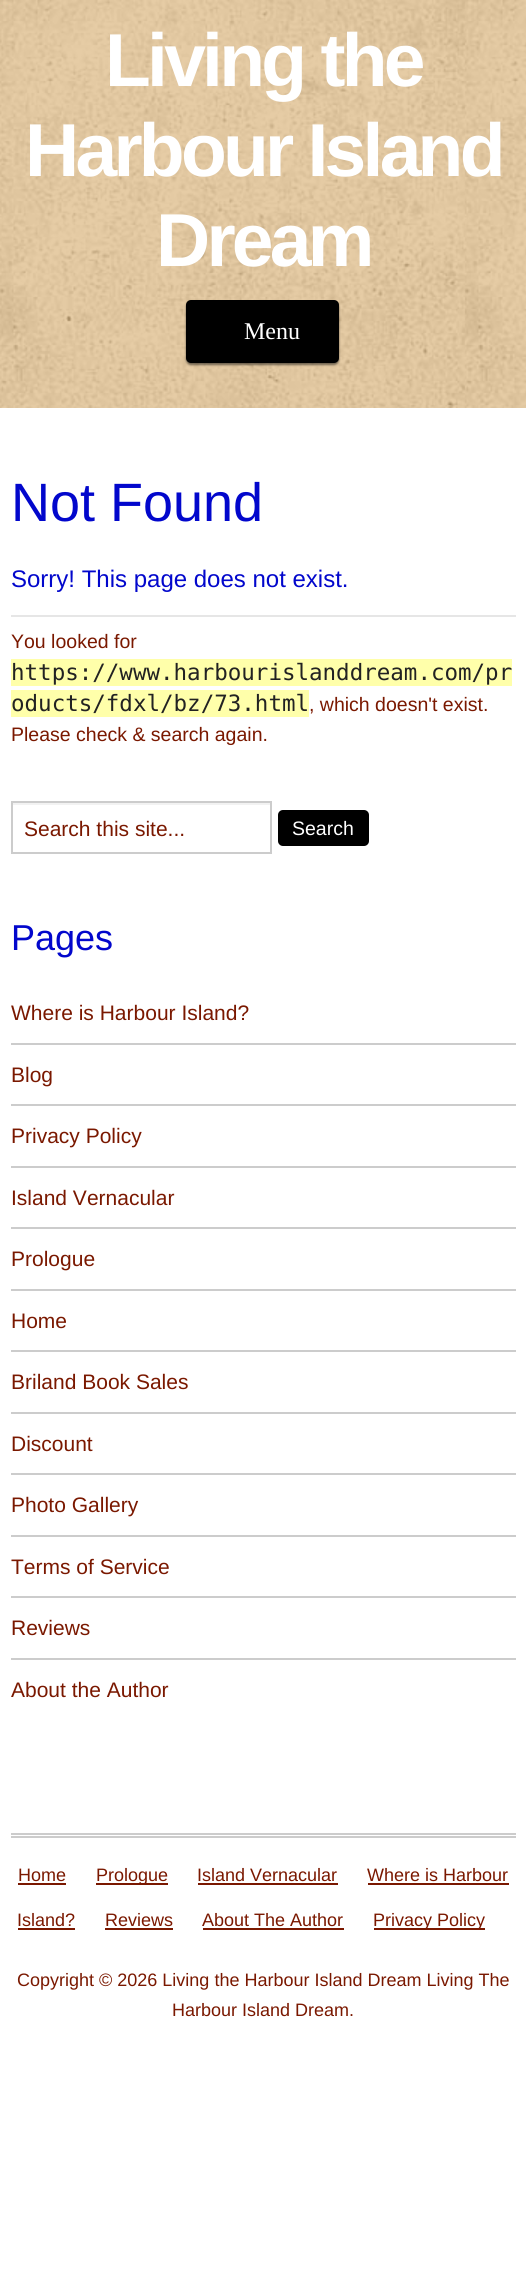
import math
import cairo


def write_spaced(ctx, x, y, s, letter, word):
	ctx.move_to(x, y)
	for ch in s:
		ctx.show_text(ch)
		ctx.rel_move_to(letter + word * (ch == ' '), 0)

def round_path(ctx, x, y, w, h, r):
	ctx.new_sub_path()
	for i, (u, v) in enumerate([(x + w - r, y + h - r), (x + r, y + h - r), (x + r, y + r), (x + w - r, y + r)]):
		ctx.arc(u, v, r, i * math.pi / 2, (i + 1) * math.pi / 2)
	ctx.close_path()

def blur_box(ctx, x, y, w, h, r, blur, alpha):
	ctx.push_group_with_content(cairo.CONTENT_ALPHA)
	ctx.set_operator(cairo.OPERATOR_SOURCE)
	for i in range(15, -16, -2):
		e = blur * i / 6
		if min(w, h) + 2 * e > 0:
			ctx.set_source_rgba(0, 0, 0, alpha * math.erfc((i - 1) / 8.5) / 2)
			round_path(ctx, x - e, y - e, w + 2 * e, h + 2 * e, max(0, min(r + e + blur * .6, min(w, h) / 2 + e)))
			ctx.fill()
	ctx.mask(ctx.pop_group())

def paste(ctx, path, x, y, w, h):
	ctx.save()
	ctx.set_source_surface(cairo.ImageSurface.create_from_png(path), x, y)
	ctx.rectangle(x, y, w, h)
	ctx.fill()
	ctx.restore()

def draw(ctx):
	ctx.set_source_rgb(1, 1, 1)
	ctx.paint()
	ctx.set_source_rgb(0.867, 0.733, 0.529)
	ctx.rectangle(0, 0, 526, 408)
	ctx.fill()
	paste(ctx, 'media/1.png', 0, 0, 526, 408)
	ctx.select_font_face('Liberation Sans', cairo.FONT_SLANT_NORMAL, cairo.FONT_WEIGHT_BOLD)
	ctx.set_font_size(75)
	ctx.set_source_rgb(1, 1, 1)
	for x, y, s in [
		(105, 86, 'Living the'),
		(25, 176, 'Harbour Island'),
		(156, 266, 'Dream'),
	]:
		write_spaced(ctx, x, y, s, -3.75, 0)
	ctx.set_source_rgb(0, 0, 0)
	blur_box(ctx, 186, 302, 153, 63, 5, 1, 0.5)
	ctx.set_source_rgb(0, 0, 0)
	round_path(ctx, 186, 300, 153, 63, 5)
	ctx.fill()
	ctx.select_font_face('Liberation Serif')
	ctx.set_font_size(24)
	ctx.set_source_rgb(1, 1, 1)
	ctx.move_to(244, 339)
	ctx.show_text('Menu')
	ctx.set_source_rgb(0.902, 0.902, 0.902)
	ctx.rectangle(11, 615, 505, 2)
	ctx.fill()
	ctx.select_font_face('Liberation Sans')
	ctx.set_font_size(54)
	ctx.set_source_rgb(0.008, 0.031, 0.8)
	ctx.move_to(11, 521)
	ctx.show_text('Not Found')
	ctx.set_font_size(24)
	ctx.move_to(11, 587)
	ctx.show_text('Sorry! This page does not exist.')
	ctx.set_font_size(19.5)
	ctx.set_source_rgb(0.478, 0.094, 0)
	ctx.move_to(11, 648)
	ctx.show_text('You looked for')
	ctx.set_source_rgb(1, 1, 0.667)
	ctx.rectangle(11, 659, 501, 27)
	ctx.fill()
	ctx.select_font_face('DejaVu Sans Mono')
	ctx.set_font_size(22.5)
	ctx.set_source_rgb(0.133, 0.133, 0.133)
	ctx.move_to(11, 680)
	ctx.show_text('https://www.harbourislanddream.com/pr')
	ctx.set_source_rgb(1, 1, 0.667)
	ctx.rectangle(11, 690, 298, 27)
	ctx.fill()
	ctx.set_source_rgb(0.133, 0.133, 0.133)
	ctx.move_to(11, 711)
	ctx.show_text('oducts/fdxl/bz/73.html')
	ctx.select_font_face('Liberation Sans')
	ctx.set_font_size(19.5)
	ctx.set_source_rgb(0.478, 0.094, 0)
	ctx.move_to(309, 711)
	ctx.show_text(', which doesn\'t exist.')
	ctx.move_to(11, 741)
	ctx.show_text('Please check & search again.')
	ctx.set_source_rgb(0.949, 0.949, 0.949)
	ctx.rectangle(12, 803, 258, 2)
	ctx.fill()
	ctx.rectangle(12, 802, 259, 51)
	ctx.set_source_rgb(0.8, 0.8, 0.8)
	ctx.stroke()
	ctx.set_font_size(21)
	ctx.set_source_rgb(0.478, 0.094, 0)
	ctx.move_to(24, 836)
	ctx.show_text('Search this site...')
	ctx.set_source_rgb(0, 0, 0)
	round_path(ctx, 278, 810, 91, 36, 5)
	ctx.fill()
	ctx.set_font_size(19.5)
	ctx.set_source_rgb(1, 1, 1)
	ctx.move_to(292, 835)
	ctx.show_text('Search')
	ctx.set_font_size(36)
	ctx.set_source_rgb(0.008, 0.031, 0.8)
	ctx.move_to(11, 950)
	ctx.show_text('Pages')
	ctx.set_source_rgb(0.8, 0.8, 0.8)
	ctx.rectangle(11, 1043, 505, 2)
	ctx.fill()
	ctx.set_font_size(21)
	ctx.set_source_rgb(0.478, 0.094, 0)
	ctx.move_to(11, 1020)
	ctx.show_text('Where is Harbour Island?')
	ctx.set_source_rgb(0.8, 0.8, 0.8)
	ctx.rectangle(11, 1104, 505, 2)
	ctx.fill()
	ctx.set_source_rgb(0.478, 0.094, 0)
	ctx.move_to(11, 1082)
	ctx.show_text('Blog')
	ctx.set_source_rgb(0.8, 0.8, 0.8)
	ctx.rectangle(11, 1166, 505, 2)
	ctx.fill()
	ctx.set_source_rgb(0.478, 0.094, 0)
	ctx.move_to(11, 1143)
	ctx.show_text('Privacy Policy')
	ctx.set_source_rgb(0.8, 0.8, 0.8)
	ctx.rectangle(11, 1227, 505, 2)
	ctx.fill()
	ctx.set_source_rgb(0.478, 0.094, 0)
	ctx.move_to(11, 1205)
	ctx.show_text('Island Vernacular')
	ctx.set_source_rgb(0.8, 0.8, 0.8)
	ctx.rectangle(11, 1289, 505, 2)
	ctx.fill()
	ctx.set_source_rgb(0.478, 0.094, 0)
	ctx.move_to(11, 1266)
	ctx.show_text('Prologue')
	ctx.set_source_rgb(0.8, 0.8, 0.8)
	ctx.rectangle(11, 1350, 505, 2)
	ctx.fill()
	ctx.set_source_rgb(0.478, 0.094, 0)
	ctx.move_to(11, 1328)
	ctx.show_text('Home')
	ctx.set_source_rgb(0.8, 0.8, 0.8)
	ctx.rectangle(11, 1412, 505, 2)
	ctx.fill()
	ctx.set_source_rgb(0.478, 0.094, 0)
	ctx.move_to(11, 1389)
	ctx.show_text('Briland Book Sales')
	ctx.set_source_rgb(0.8, 0.8, 0.8)
	ctx.rectangle(11, 1473, 505, 2)
	ctx.fill()
	ctx.set_source_rgb(0.478, 0.094, 0)
	ctx.move_to(11, 1451)
	ctx.show_text('Discount')
	ctx.set_source_rgb(0.8, 0.8, 0.8)
	ctx.rectangle(11, 1535, 505, 2)
	ctx.fill()
	ctx.set_source_rgb(0.478, 0.094, 0)
	ctx.move_to(11, 1512)
	ctx.show_text('Photo Gallery')
	ctx.set_source_rgb(0.8, 0.8, 0.8)
	ctx.rectangle(11, 1596, 505, 2)
	ctx.fill()
	ctx.set_source_rgb(0.478, 0.094, 0)
	ctx.move_to(11, 1574)
	ctx.show_text('Terms of Service')
	ctx.set_source_rgb(0.8, 0.8, 0.8)
	ctx.rectangle(11, 1658, 505, 2)
	ctx.fill()
	ctx.set_source_rgb(0.478, 0.094, 0)
	ctx.move_to(11, 1635)
	ctx.show_text('Reviews')
	ctx.move_to(11, 1697)
	ctx.show_text('About the Author')
	ctx.set_source_rgb(0.8, 0.8, 0.8)
	ctx.rectangle(11, 1833, 505, 2)
	ctx.fill()
	ctx.rectangle(11, 1836, 505, 2)
	ctx.fill()
	ctx.set_font_size(18)
	ctx.set_source_rgb(0.478, 0.094, 0)
	ctx.move_to(18, 1881)
	ctx.show_text('Home')
	ctx.rectangle(18, 1883, 48, 2)
	ctx.fill()
	ctx.rectangle(96, 1883, 72, 2)
	ctx.fill()
	ctx.move_to(96, 1881)
	ctx.show_text('Prologue')
	ctx.move_to(197, 1881)
	ctx.show_text('Island Vernacular')
	ctx.rectangle(198, 1883, 140, 2)
	ctx.fill()
	ctx.move_to(367, 1881)
	ctx.show_text('Where is Harbour')
	ctx.rectangle(368, 1883, 141, 2)
	ctx.fill()
	ctx.move_to(17, 1926)
	ctx.show_text('Island?')
	ctx.rectangle(18, 1928, 57, 2)
	ctx.fill()
	ctx.move_to(105, 1926)
	ctx.show_text('Reviews')
	ctx.rectangle(105, 1928, 68, 2)
	ctx.fill()
	ctx.move_to(202, 1926)
	ctx.show_text('About The Author')
	ctx.rectangle(203, 1928, 141, 2)
	ctx.fill()
	ctx.rectangle(374, 1928, 111, 2)
	ctx.fill()
	for x, y, s in [
		(373, 1926, 'Privacy Policy'),
		(17, 1986, 'Copyright © 2026 Living the Harbour Island Dream Living The'),
		(172, 2016, 'Harbour Island Dream.'),
	]:
		ctx.move_to(x, y)
		ctx.show_text(s)


surface = cairo.ImageSurface(cairo.FORMAT_RGB24, 526, 2278)
ctx = cairo.Context(surface)
options = cairo.FontOptions()
options.set_hint_metrics(cairo.HINT_METRICS_OFF)
options.set_hint_style(cairo.HINT_STYLE_NONE)
ctx.set_font_options(options)
ctx.set_miter_limit(4)
draw(ctx)
surface.write_to_png('image.png')
